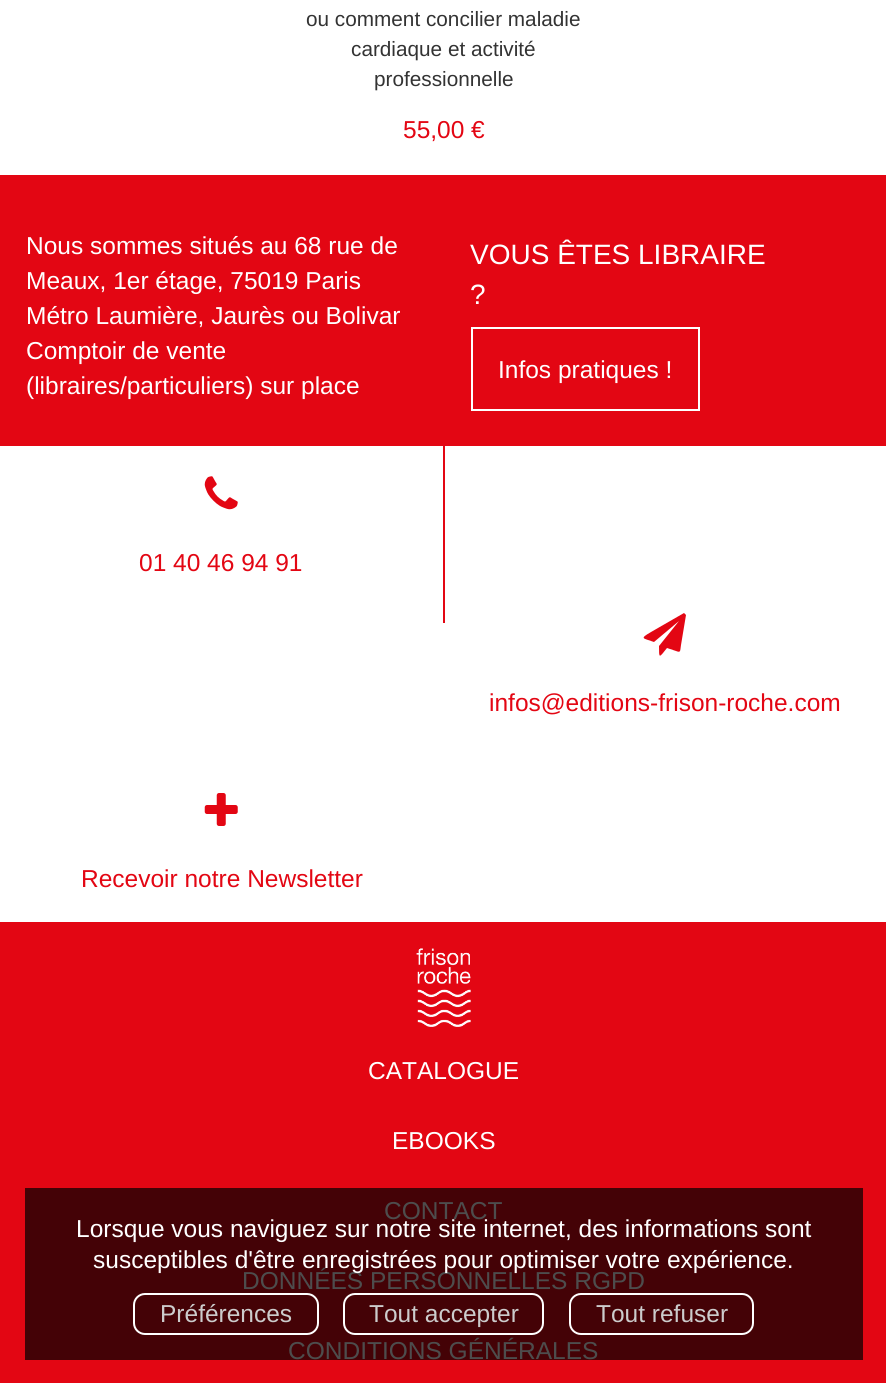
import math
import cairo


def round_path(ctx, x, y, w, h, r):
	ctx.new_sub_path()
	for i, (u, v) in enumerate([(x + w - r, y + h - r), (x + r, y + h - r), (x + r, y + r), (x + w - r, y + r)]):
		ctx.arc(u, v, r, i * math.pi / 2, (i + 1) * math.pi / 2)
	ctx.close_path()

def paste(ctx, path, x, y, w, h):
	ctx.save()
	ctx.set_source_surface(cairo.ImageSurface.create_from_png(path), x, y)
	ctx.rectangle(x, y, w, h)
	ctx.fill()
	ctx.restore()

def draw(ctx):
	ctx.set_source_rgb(1, 1, 1)
	ctx.paint()
	ctx.select_font_face('Liberation Sans')
	ctx.set_font_size(20.75)
	ctx.set_source_rgb(0.2, 0.2, 0.2)
	for x, y, s in [
		(306, 26, 'ou comment concilier maladie'),
		(351, 56, 'cardiaque et activité'),
		(374, 86, 'professionnelle'),
	]:
		ctx.move_to(x, y)
		ctx.show_text(s)
	ctx.set_font_size(24.5)
	ctx.set_source_rgb(0.89, 0.024, 0.075)
	ctx.move_to(403, 138)
	ctx.show_text('55,00 €')
	ctx.rectangle(0, 175, 886, 271)
	ctx.fill()
	ctx.set_source_rgb(1, 1, 1)
	for x, y, s in [
		(26, 254, 'Nous sommes situés au 68 rue de'),
		(26, 289, 'Meaux, 1er étage, 75019 Paris'),
		(26, 324, 'Métro Laumière, Jaurès ou Bolivar'),
		(26, 359, 'Comptoir de vente'),
		(26, 394, '(libraires/particuliers) sur place'),
	]:
		ctx.move_to(x, y)
		ctx.show_text(s)
	ctx.set_font_size(28)
	ctx.move_to(470, 264)
	ctx.show_text('VOUS ÊTES LIBRAIRE')
	ctx.move_to(470, 304)
	ctx.show_text('?')
	ctx.rectangle(472, 328, 227, 82)
	ctx.stroke()
	ctx.set_font_size(24.5)
	ctx.move_to(498, 378)
	ctx.show_text('Infos pratiques !')
	ctx.set_source_rgb(0.89, 0.024, 0.075)
	ctx.rectangle(443, 446, 2, 177)
	ctx.fill()
	paste(ctx, 'media/1.png', 204, 476, 34, 34)
	ctx.move_to(139, 571)
	ctx.show_text('01 40 46 94 91')
	ctx.new_path()
	ctx.move_to(685, 614)
	ctx.line_to(686, 615)
	ctx.line_to(681, 645)
	ctx.curve_to(680, 651, 681, 653, 676, 651)
	ctx.line_to(667, 648)
	ctx.curve_to(659, 658, 659, 659, 659, 646)
	ctx.line_to(679, 621)
	ctx.line_to(654, 642)
	ctx.curve_to(643, 638, 639, 639, 651, 632)
	ctx.line_to(684, 613)
	ctx.close_path()
	ctx.fill()
	ctx.move_to(489, 711)
	ctx.show_text('infos@editions-frison-roche.com')
	paste(ctx, 'media/2.png', 204, 793, 34, 33)
	ctx.move_to(81, 887)
	ctx.show_text('Recevoir notre Newsletter')
	ctx.rectangle(0, 922, 886, 461)
	ctx.fill()
	ctx.set_source_rgb(0.267, 0.008, 0.024)
	ctx.rectangle(25, 1188, 838, 172)
	ctx.fill()
	paste(ctx, 'media/3.png', 416, 948, 55, 79)
	ctx.set_source_rgb(1, 1, 1)
	ctx.move_to(368, 1079)
	ctx.show_text('CATALOGUE')
	ctx.move_to(392, 1149)
	ctx.show_text('EBOOKS')
	ctx.set_source_rgb(0.302, 0.302, 0.302)
	for x, y, s in [
		(384, 1219, 'CONTACT'),
		(242, 1289, 'DONNÉES PERSONNELLES RGPD'),
		(288, 1359, 'CONDITIONS GÉNÉRALES'),
	]:
		ctx.move_to(x, y)
		ctx.show_text(s)
	ctx.set_source_rgb(1, 1, 1)
	ctx.move_to(76, 1237)
	ctx.show_text('Lorsque vous naviguez sur notre site internet, des informations sont')
	ctx.move_to(93, 1268)
	ctx.show_text('susceptibles d\'être enregistrées pour optimiser votre expérience.')
	round_path(ctx, 134, 1294, 184, 40, 11)
	ctx.stroke()
	ctx.set_source_rgb(0.8, 0.8, 0.8)
	ctx.move_to(160, 1322)
	ctx.show_text('Préférences')
	round_path(ctx, 344, 1294, 199, 40, 11)
	ctx.set_source_rgb(1, 1, 1)
	ctx.stroke()
	ctx.set_source_rgb(0.8, 0.8, 0.8)
	ctx.move_to(369, 1322)
	ctx.show_text('Tout accepter')
	round_path(ctx, 570, 1294, 183, 40, 11)
	ctx.set_source_rgb(1, 1, 1)
	ctx.stroke()
	ctx.set_source_rgb(0.8, 0.8, 0.8)
	ctx.move_to(596, 1322)
	ctx.show_text('Tout refuser')


surface = cairo.ImageSurface(cairo.FORMAT_RGB24, 886, 1383)
ctx = cairo.Context(surface)
options = cairo.FontOptions()
options.set_hint_metrics(cairo.HINT_METRICS_OFF)
options.set_hint_style(cairo.HINT_STYLE_NONE)
ctx.set_font_options(options)
ctx.set_miter_limit(4)
draw(ctx)
surface.write_to_png('image.png')
